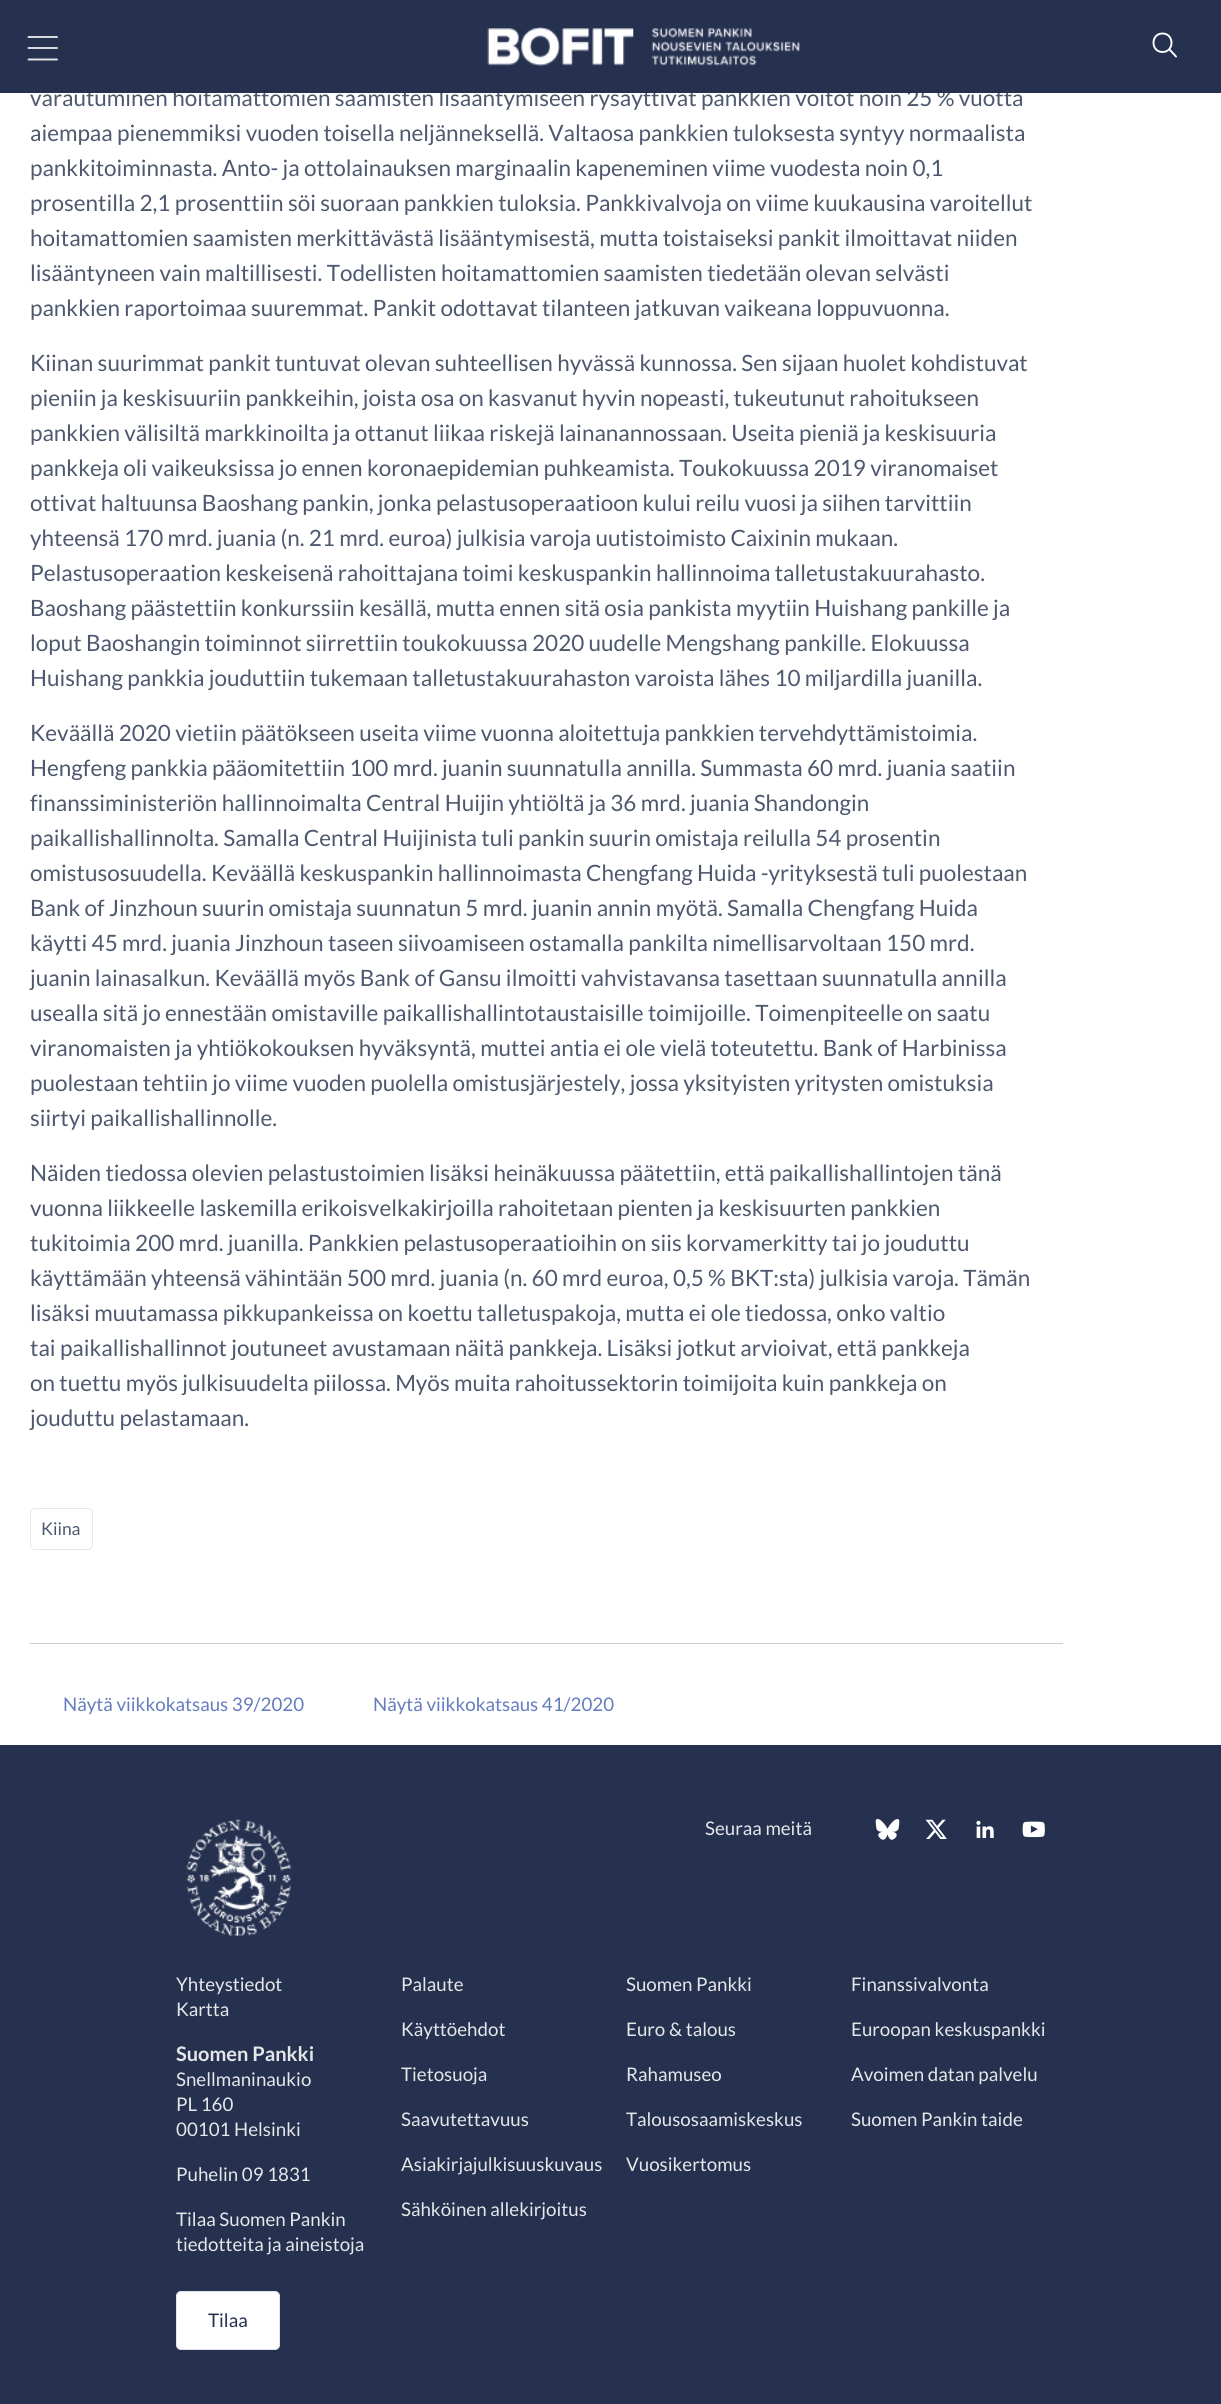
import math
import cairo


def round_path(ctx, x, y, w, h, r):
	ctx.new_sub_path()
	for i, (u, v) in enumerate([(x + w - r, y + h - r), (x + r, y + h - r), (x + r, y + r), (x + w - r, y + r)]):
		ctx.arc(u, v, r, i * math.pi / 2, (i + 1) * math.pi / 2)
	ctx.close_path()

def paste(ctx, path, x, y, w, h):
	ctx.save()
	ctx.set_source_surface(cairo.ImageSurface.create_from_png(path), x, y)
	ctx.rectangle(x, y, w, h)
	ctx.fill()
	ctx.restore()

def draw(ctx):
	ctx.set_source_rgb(1, 1, 1)
	ctx.paint()
	ctx.select_font_face('Lato')
	ctx.set_font_size(22.5)
	ctx.set_source_rgb(0.306, 0.345, 0.431)
	ctx.move_to(30, 106)
	ctx.show_text('varautuminen hoitamattomien saamisten lisääntymiseen rysäyttivät pankkien voitot noin 25 % vuotta')
	ctx.set_source_rgb(0.145, 0.192, 0.31)
	ctx.rectangle(0, 0, 1221, 93)
	ctx.fill()
	ctx.new_path()
	ctx.move_to(57, 37)
	ctx.line_to(28.5, 37)
	ctx.move_to(57, 48)
	ctx.line_to(28.5, 48)
	ctx.move_to(57, 59.5)
	ctx.line_to(28.5, 59.5)
	ctx.set_source_rgb(0.898, 0.906, 0.914)
	ctx.set_line_width(1.9)
	ctx.set_line_cap(cairo.LINE_CAP_ROUND)
	ctx.set_line_join(cairo.LINE_JOIN_ROUND)
	ctx.stroke()
	paste(ctx, 'media/1.png', 487, 27, 313, 39)
	ctx.new_path()
	ctx.move_to(1162.5, 52)
	ctx.curve_to(1174.5, 52, 1174.5, 33.5, 1162.5, 33.5)
	ctx.curve_to(1150.5, 33.5, 1150.5, 52, 1162.5, 52)
	ctx.close_path()
	ctx.move_to(1176, 56.5)
	ctx.line_to(1170, 50)
	ctx.set_source_rgb(1, 1, 1)
	ctx.stroke()
	ctx.set_source_rgb(0.306, 0.345, 0.431)
	for x, y, s in [
		(30, 141, 'aiempaa pienemmiksi vuoden toisella neljänneksellä. Valtaosa pankkien tuloksesta syntyy normaalista'),
		(30, 176, 'pankkitoiminnasta. Anto- ja ottolainauksen marginaalin kapeneminen viime vuodesta noin 0,1'),
		(30, 211, 'prosentilla 2,1 prosenttiin söi suoraan pankkien tuloksia. Pankkivalvoja on viime kuukausina varoitellut'),
		(30, 246, 'hoitamattomien saamisten merkittävästä lisääntymisestä, mutta toistaiseksi pankit ilmoittavat niiden'),
		(30, 281, 'lisääntyneen vain maltillisesti. Todellisten hoitamattomien saamisten tiedetään olevan selvästi'),
		(30, 316, 'pankkien raportoimaa suuremmat. Pankit odottavat tilanteen jatkuvan vaikeana loppuvuonna.'),
		(30, 371, 'Kiinan suurimmat pankit tuntuvat olevan suhteellisen hyvässä kunnossa. Sen sijaan huolet kohdistuvat'),
		(30, 406, 'pieniin ja keskisuuriin pankkeihin, joista osa on kasvanut hyvin nopeasti, tukeutunut rahoitukseen'),
		(30, 441, 'pankkien välisiltä markkinoilta ja ottanut liikaa riskejä lainanannossaan. Useita pieniä ja keskisuuria'),
		(30, 476, 'pankkeja oli vaikeuksissa jo ennen koronaepidemian puhkeamista. Toukokuussa 2019 viranomaiset'),
		(30, 511, 'ottivat haltuunsa Baoshang pankin, jonka pelastusoperaatioon kului reilu vuosi ja siihen tarvittiin'),
		(30, 546, 'yhteensä 170 mrd. juania (n. 21 mrd. euroa) julkisia varoja uutistoimisto Caixinin mukaan.'),
		(30, 581, 'Pelastusoperaation keskeisenä rahoittajana toimi keskuspankin hallinnoima talletustakuurahasto.'),
		(30, 616, 'Baoshang päästettiin konkurssiin kesällä, mutta ennen sitä osia pankista myytiin Huishang pankille ja'),
		(30, 651, 'loput Baoshangin toiminnot siirrettiin toukokuussa 2020 uudelle Mengshang pankille. Elokuussa'),
		(30, 686, 'Huishang pankkia jouduttiin tukemaan talletustakuurahaston varoista lähes 10 miljardilla juanilla.'),
		(30, 741, 'Keväällä 2020 vietiin päätökseen useita viime vuonna aloitettuja pankkien tervehdyttämistoimia.'),
		(30, 776, 'Hengfeng pankkia pääomitettiin 100 mrd. juanin suunnatulla annilla. Summasta 60 mrd. juania saatiin'),
		(30, 811, 'finanssiministeriön hallinnoimalta Central Huijin yhtiöltä ja 36 mrd. juania Shandongin'),
		(30, 846, 'paikallishallinnolta. Samalla Central Huijinista tuli pankin suurin omistaja reilulla 54 prosentin'),
		(30, 881, 'omistusosuudella. Keväällä keskuspankin hallinnoimasta Chengfang Huida -yrityksestä tuli puolestaan'),
		(30, 916, 'Bank of Jinzhoun suurin omistaja suunnatun 5 mrd. juanin annin myötä. Samalla Chengfang Huida'),
		(30, 951, 'käytti 45 mrd. juania Jinzhoun taseen siivoamiseen ostamalla pankilta nimellisarvoltaan 150 mrd.'),
		(30, 986, 'juanin lainasalkun. Keväällä myös Bank of Gansu ilmoitti vahvistavansa tasettaan suunnatulla annilla'),
		(30, 1021, 'usealla sitä jo ennestään omistaville paikallishallintotaustaisille toimijoille. Toimenpiteelle on saatu'),
		(30, 1056, 'viranomaisten ja yhtiökokouksen hyväksyntä, muttei antia ei ole vielä toteutettu. Bank of Harbinissa'),
		(30, 1091, 'puolestaan tehtiin jo viime vuoden puolella omistusjärjestely, jossa yksityisten yritysten omistuksia'),
		(30, 1126, 'siirtyi paikallishallinnolle.'),
		(30, 1181, 'Näiden tiedossa olevien pelastustoimien lisäksi heinäkuussa päätettiin, että paikallishallintojen tänä'),
		(30, 1216, 'vuonna liikkeelle laskemilla erikoisvelkakirjoilla rahoitetaan pienten ja keskisuurten pankkien'),
		(30, 1251, 'tukitoimia 200 mrd. juanilla. Pankkien pelastusoperaatioihin on siis korvamerkitty tai jo jouduttu'),
		(30, 1286, 'käyttämään yhteensä vähintään 500 mrd. juania (n. 60 mrd euroa, 0,5 % BKT:sta) julkisia varoja. Tämän'),
		(30, 1321, 'lisäksi muutamassa pikkupankeissa on koettu talletuspakoja, mutta ei ole tiedossa, onko valtio'),
		(30, 1356, 'tai paikallishallinnot joutuneet avustamaan näitä pankkeja. Lisäksi jotkut arvioivat, että pankkeja'),
		(30, 1391, 'on tuettu myös julkisuudelta piilossa. Myös muita rahoitussektorin toimijoita kuin pankkeja on'),
		(30, 1426, 'jouduttu pelastamaan.'),
	]:
		ctx.move_to(x, y)
		ctx.show_text(s)
	round_path(ctx, 30.5, 1508.5, 62, 41, 4.5)
	ctx.set_source_rgb(0.898, 0.906, 0.914)
	ctx.set_line_width(1)
	ctx.set_line_cap(cairo.LINE_CAP_BUTT)
	ctx.set_line_join(cairo.LINE_JOIN_MITER)
	ctx.stroke()
	ctx.set_font_size(17.5)
	ctx.set_source_rgb(0.306, 0.345, 0.431)
	ctx.move_to(41, 1535)
	ctx.show_text('Kiina')
	ctx.set_source_rgb(0.788, 0.8, 0.827)
	ctx.rectangle(30, 1643, 1033, 1)
	ctx.fill()
	ctx.set_font_size(18.75)
	ctx.set_source_rgb(0.396, 0.486, 0.741)
	ctx.move_to(63, 1711)
	ctx.show_text('Näytä viikkokatsaus 39/2020')
	ctx.move_to(373, 1711)
	ctx.show_text('Näytä viikkokatsaus 41/2020')
	ctx.set_source_rgb(0.145, 0.192, 0.31)
	ctx.rectangle(0, 1745, 1221, 659)
	ctx.fill()
	paste(ctx, 'media/2.png', 186, 1819, 105, 117)
	ctx.set_source_rgb(0.898, 0.906, 0.914)
	ctx.move_to(705, 1835)
	ctx.show_text('Seuraa meitä')
	paste(ctx, 'media/3.png', 875, 1819, 25, 21)
	paste(ctx, 'media/4.png', 925, 1819, 22, 20)
	paste(ctx, 'media/5.png', 976, 1820, 18, 18)
	paste(ctx, 'media/6.png', 1022, 1821, 23, 17)
	ctx.move_to(176, 1991)
	ctx.show_text('Yhteystiedot')
	ctx.move_to(176, 2016)
	ctx.show_text('Kartta')
	ctx.select_font_face('Lato', cairo.FONT_SLANT_NORMAL, cairo.FONT_WEIGHT_BOLD)
	ctx.set_font_size(20)
	ctx.move_to(176, 2061)
	ctx.show_text('Suomen Pankki')
	ctx.select_font_face('Lato')
	ctx.set_font_size(18.75)
	for x, y, s in [
		(176, 2086, 'Snellmaninaukio'),
		(176, 2111, 'PL 160'),
		(176, 2136, '00101 Helsinki'),
		(176, 2181, 'Puhelin 09 1831'),
		(176, 2226, 'Tilaa Suomen Pankin'),
		(176, 2251, 'tiedotteita ja aineistoja'),
	]:
		ctx.move_to(x, y)
		ctx.show_text(s)
	ctx.set_source_rgb(1, 1, 1)
	round_path(ctx, 176.5, 2291.5, 103, 58, 4.5)
	ctx.fill_preserve()
	ctx.set_source_rgb(0.875, 0.882, 0.941)
	ctx.stroke()
	ctx.set_source_rgb(0.145, 0.192, 0.31)
	ctx.move_to(208, 2327)
	ctx.show_text('Tilaa')
	ctx.set_source_rgb(0.898, 0.906, 0.914)
	for x, y, s in [
		(401, 1991, 'Palaute'),
		(401, 2036, 'Käyttöehdot'),
		(401, 2081, 'Tietosuoja'),
		(401, 2126, 'Saavutettavuus'),
		(401, 2171, 'Asiakirjajulkisuuskuvaus'),
		(401, 2216, 'Sähköinen allekirjoitus'),
		(626, 1991, 'Suomen Pankki'),
		(626, 2036, 'Euro & talous'),
		(626, 2081, 'Rahamuseo'),
		(626, 2126, 'Talousosaamiskeskus'),
		(626, 2171, 'Vuosikertomus'),
		(851, 1991, 'Finanssivalvonta'),
		(851, 2036, 'Euroopan keskuspankki'),
		(851, 2081, 'Avoimen datan palvelu'),
		(851, 2126, 'Suomen Pankin taide'),
	]:
		ctx.move_to(x, y)
		ctx.show_text(s)


surface = cairo.ImageSurface(cairo.FORMAT_RGB24, 1221, 2404)
ctx = cairo.Context(surface)
options = cairo.FontOptions()
options.set_hint_metrics(cairo.HINT_METRICS_OFF)
options.set_hint_style(cairo.HINT_STYLE_NONE)
ctx.set_font_options(options)
ctx.set_miter_limit(4)
draw(ctx)
surface.write_to_png('image.png')
